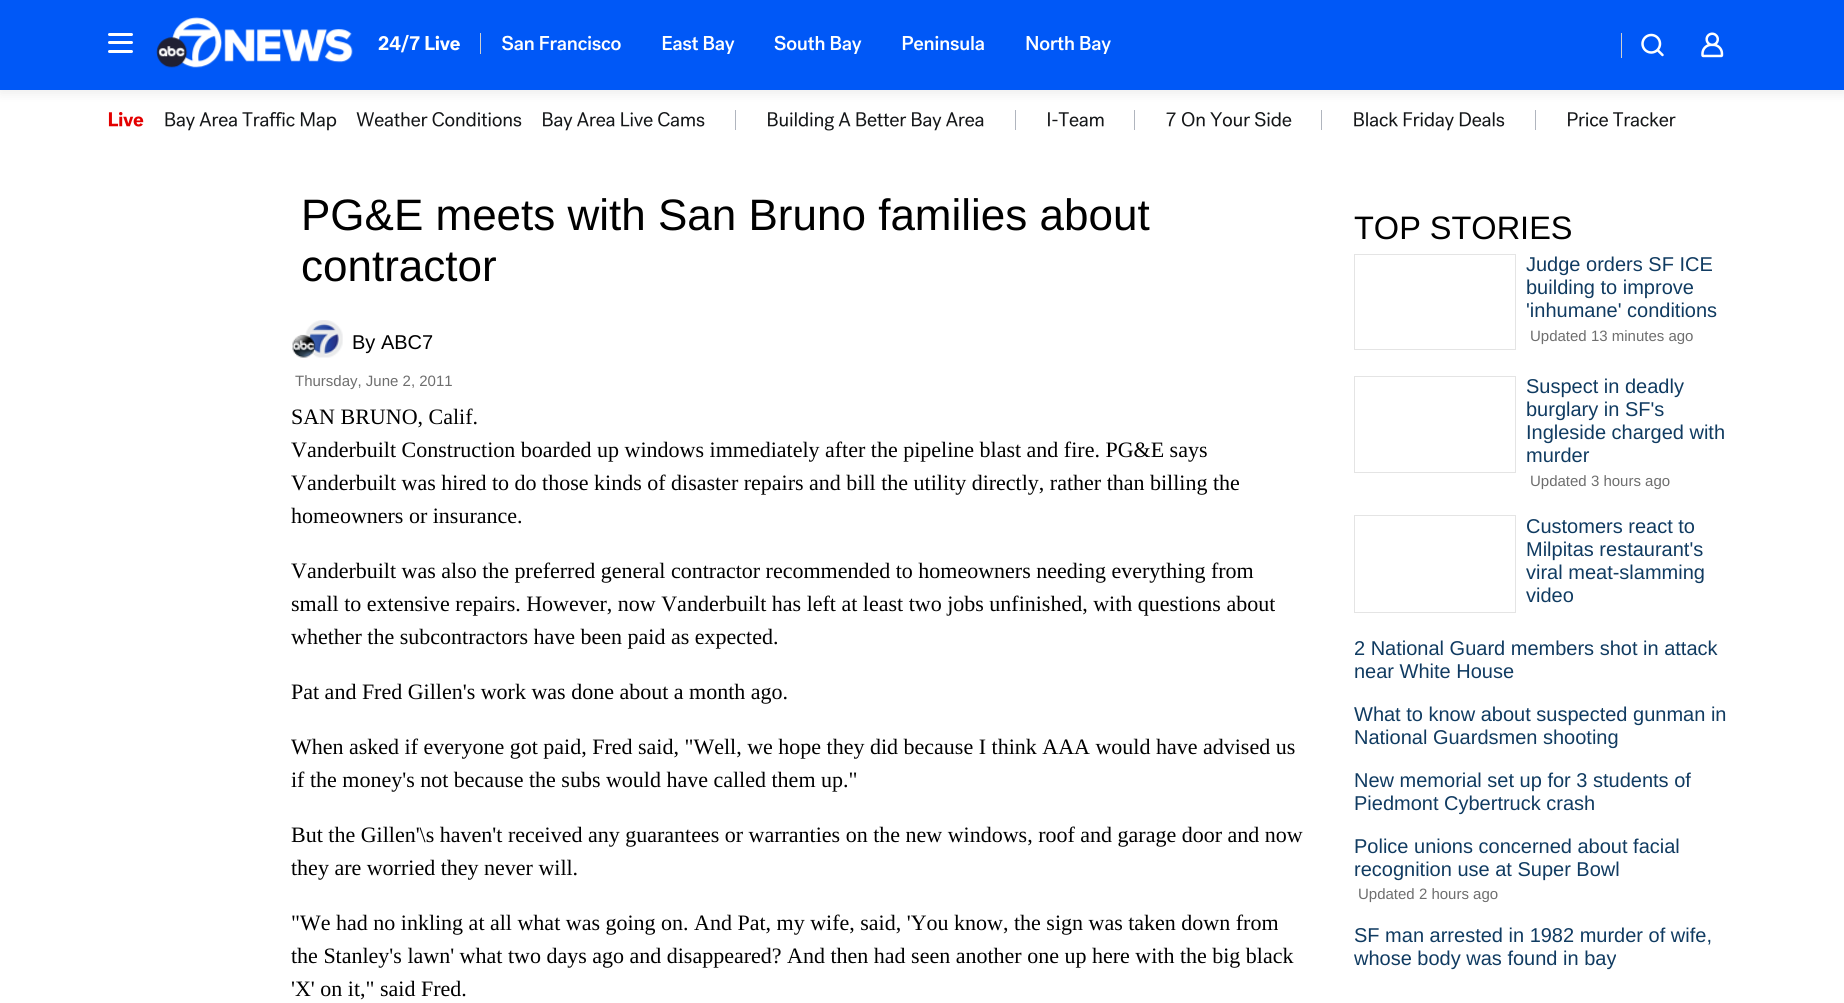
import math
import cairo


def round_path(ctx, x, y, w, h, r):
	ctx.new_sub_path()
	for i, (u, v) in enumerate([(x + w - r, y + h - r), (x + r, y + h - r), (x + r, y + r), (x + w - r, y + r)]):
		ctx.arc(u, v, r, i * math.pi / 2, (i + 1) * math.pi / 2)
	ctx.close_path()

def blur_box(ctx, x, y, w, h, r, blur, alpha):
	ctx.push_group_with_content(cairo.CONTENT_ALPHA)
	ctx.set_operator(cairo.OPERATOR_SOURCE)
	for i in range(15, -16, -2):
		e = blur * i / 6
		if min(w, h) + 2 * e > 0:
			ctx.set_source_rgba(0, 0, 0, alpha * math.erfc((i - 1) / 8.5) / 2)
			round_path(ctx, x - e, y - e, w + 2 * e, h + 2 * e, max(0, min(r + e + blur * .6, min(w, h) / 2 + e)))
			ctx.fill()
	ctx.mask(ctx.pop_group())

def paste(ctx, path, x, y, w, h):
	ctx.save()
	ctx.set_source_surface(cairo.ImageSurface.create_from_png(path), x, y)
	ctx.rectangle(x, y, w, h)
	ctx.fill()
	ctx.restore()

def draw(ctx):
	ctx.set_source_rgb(1, 1, 1)
	ctx.paint()
	ctx.set_source_rgb(0.69, 0.71, 0.745)
	ctx.rectangle(735, 110, 1, 20)
	ctx.rectangle(1015, 110, 1, 20)
	ctx.rectangle(1134, 110, 1, 20)
	ctx.rectangle(1321, 110, 1, 20)
	ctx.rectangle(1535, 110, 1, 20)
	ctx.fill()
	ctx.set_source_rgb(0, 0, 0)
	blur_box(ctx, 0, 3, 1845, 90, 0, 6, 0.08)
	ctx.set_source_rgb(0, 0.345, 0.965)
	ctx.rectangle(0, 0, 1844, 90)
	ctx.fill()
	ctx.set_source_rgb(1, 1, 1)
	round_path(ctx, 108, 41, 25, 3, 1.5)
	ctx.fill()
	round_path(ctx, 108, 33, 25, 3, 1.5)
	ctx.fill()
	round_path(ctx, 108, 50, 25, 3, 1.5)
	ctx.fill()
	paste(ctx, 'media/1.png', 156, 17, 197, 51)
	paste(ctx, 'media/2.png', 378, 34, 82, 19)
	ctx.set_source_rgb(0.808, 0.812, 0.812)
	ctx.rectangle(480, 33, 1, 21)
	ctx.fill()
	paste(ctx, 'media/3.png', 502, 35, 119, 16)
	paste(ctx, 'media/4.png', 662, 36, 73, 18)
	paste(ctx, 'media/5.png', 774, 35, 88, 19)
	paste(ctx, 'media/6.png', 902, 35, 82, 16)
	paste(ctx, 'media/7.png', 1026, 36, 85, 18)
	ctx.rectangle(1621, 33, 1, 25)
	ctx.fill()
	paste(ctx, 'media/8.png', 1641, 33, 23, 24)
	paste(ctx, 'media/9.png', 1701, 32, 23, 26)
	paste(ctx, 'media/10.png', 108, 112, 36, 15)
	paste(ctx, 'media/11.png', 165, 112, 172, 19)
	paste(ctx, 'media/12.png', 356, 112, 166, 15)
	paste(ctx, 'media/13.png', 543, 112, 162, 19)
	paste(ctx, 'media/14.png', 768, 112, 216, 19)
	paste(ctx, 'media/15.png', 1048, 112, 56, 15)
	paste(ctx, 'media/16.png', 1166, 112, 126, 15)
	paste(ctx, 'media/17.png', 1354, 112, 151, 19)
	paste(ctx, 'media/18.png', 1568, 112, 108, 15)
	ctx.select_font_face('Liberation Sans')
	ctx.set_font_size(44)
	ctx.set_source_rgb(0, 0, 0)
	ctx.move_to(301, 230)
	ctx.show_text('PG&E meets with San Bruno families about')
	ctx.move_to(301, 281)
	ctx.show_text('contractor')
	paste(ctx, 'media/19.png', 292, 320, 51, 38)
	ctx.set_font_size(20)
	ctx.move_to(352, 349)
	ctx.show_text('By ABC7')
	ctx.set_font_size(15)
	ctx.set_source_rgb(0.431, 0.431, 0.431)
	ctx.move_to(295, 386)
	ctx.show_text('Thursday, June 2, 2011')
	ctx.select_font_face('Liberation Serif')
	ctx.set_font_size(22)
	ctx.set_source_rgb(0, 0, 0)
	for x, y, s in [
		(291, 424, 'SAN BRUNO, Calif.'),
		(291, 457, 'Vanderbuilt Construction boarded up windows immediately after the pipeline blast and fire. PG&E says'),
		(291, 490, 'Vanderbuilt was hired to do those kinds of disaster repairs and bill the utility directly, rather than billing the'),
		(291, 523, 'homeowners or insurance.'),
		(291, 578, 'Vanderbuilt was also the preferred general contractor recommended to homeowners needing everything from'),
		(291, 611, 'small to extensive repairs. However, now Vanderbuilt has left at least two jobs unfinished, with questions about'),
		(291, 644, 'whether the subcontractors have been paid as expected.'),
		(291, 699, 'Pat and Fred Gillen\'s work was done about a month ago.'),
		(291, 754, 'When asked if everyone got paid, Fred said, "Well, we hope they did because I think AAA would have advised us'),
		(291, 787, 'if the money\'s not because the subs would have called them up."'),
		(291, 842, 'But the Gillen\'\\s haven\'t received any guarantees or warranties on the new windows, roof and garage door and now'),
		(291, 875, 'they are worried they never will.'),
		(291, 930, '"We had no inkling at all what was going on. And Pat, my wife, said, \'You know, the sign was taken down from'),
		(291, 963, 'the Stanley\'s lawn\' what two days ago and disappeared? And then had seen another one up here with the big black'),
		(291, 996, '\'X\' on it," said Fred.'),
	]:
		ctx.move_to(x, y)
		ctx.show_text(s)
	ctx.select_font_face('Liberation Sans')
	ctx.set_font_size(32.5)
	ctx.move_to(1354, 239)
	ctx.show_text('TOP STORIES')
	ctx.rectangle(1354.5, 254.5, 161, 95)
	ctx.set_source_rgb(0.894, 0.894, 0.894)
	ctx.set_line_width(1)
	ctx.stroke()
	ctx.set_font_size(20)
	ctx.set_source_rgb(0.063, 0.231, 0.38)
	for x, y, s in [
		(1526, 271, 'Judge orders SF ICE'),
		(1526, 294, 'building to improve'),
		(1526, 317, '\'inhumane\' conditions'),
	]:
		ctx.move_to(x, y)
		ctx.show_text(s)
	ctx.set_font_size(15)
	ctx.set_source_rgb(0.431, 0.431, 0.431)
	ctx.move_to(1530, 341)
	ctx.show_text('Updated 13 minutes ago')
	ctx.rectangle(1354.5, 376.5, 161, 96)
	ctx.set_source_rgb(0.894, 0.894, 0.894)
	ctx.stroke()
	ctx.set_font_size(20)
	ctx.set_source_rgb(0.063, 0.231, 0.38)
	for x, y, s in [
		(1526, 393, 'Suspect in deadly'),
		(1526, 416, 'burglary in SF\'s'),
		(1526, 439, 'Ingleside charged with'),
		(1526, 462, 'murder'),
	]:
		ctx.move_to(x, y)
		ctx.show_text(s)
	ctx.set_font_size(15)
	ctx.set_source_rgb(0.431, 0.431, 0.431)
	ctx.move_to(1530, 486)
	ctx.show_text('Updated 3 hours ago')
	ctx.rectangle(1354.5, 515.5, 161, 97)
	ctx.set_source_rgb(0.894, 0.894, 0.894)
	ctx.stroke()
	ctx.set_font_size(20)
	ctx.set_source_rgb(0.063, 0.231, 0.38)
	for x, y, s in [
		(1526, 533, 'Customers react to'),
		(1526, 556, 'Milpitas restaurant\'s'),
		(1526, 579, 'viral meat-slamming'),
		(1526, 602, 'video'),
		(1354, 655, '2 National Guard members shot in attack'),
		(1354, 678, 'near White House'),
		(1354, 721, 'What to know about suspected gunman in'),
		(1354, 744, 'National Guardsmen shooting'),
		(1354, 787, 'New memorial set up for 3 students of'),
		(1354, 810, 'Piedmont Cybertruck crash'),
		(1354, 853, 'Police unions concerned about facial'),
		(1354, 876, 'recognition use at Super Bowl'),
	]:
		ctx.move_to(x, y)
		ctx.show_text(s)
	ctx.set_font_size(15)
	ctx.set_source_rgb(0.431, 0.431, 0.431)
	ctx.move_to(1358, 899)
	ctx.show_text('Updated 2 hours ago')
	ctx.set_font_size(20)
	ctx.set_source_rgb(0.063, 0.231, 0.38)
	ctx.move_to(1354, 942)
	ctx.show_text('SF man arrested in 1982 murder of wife,')
	ctx.move_to(1354, 965)
	ctx.show_text('whose body was found in bay')


surface = cairo.ImageSurface(cairo.FORMAT_RGB24, 1844, 1003)
ctx = cairo.Context(surface)
options = cairo.FontOptions()
options.set_hint_metrics(cairo.HINT_METRICS_OFF)
options.set_hint_style(cairo.HINT_STYLE_NONE)
ctx.set_font_options(options)
ctx.set_miter_limit(4)
draw(ctx)
surface.write_to_png('image.png')
